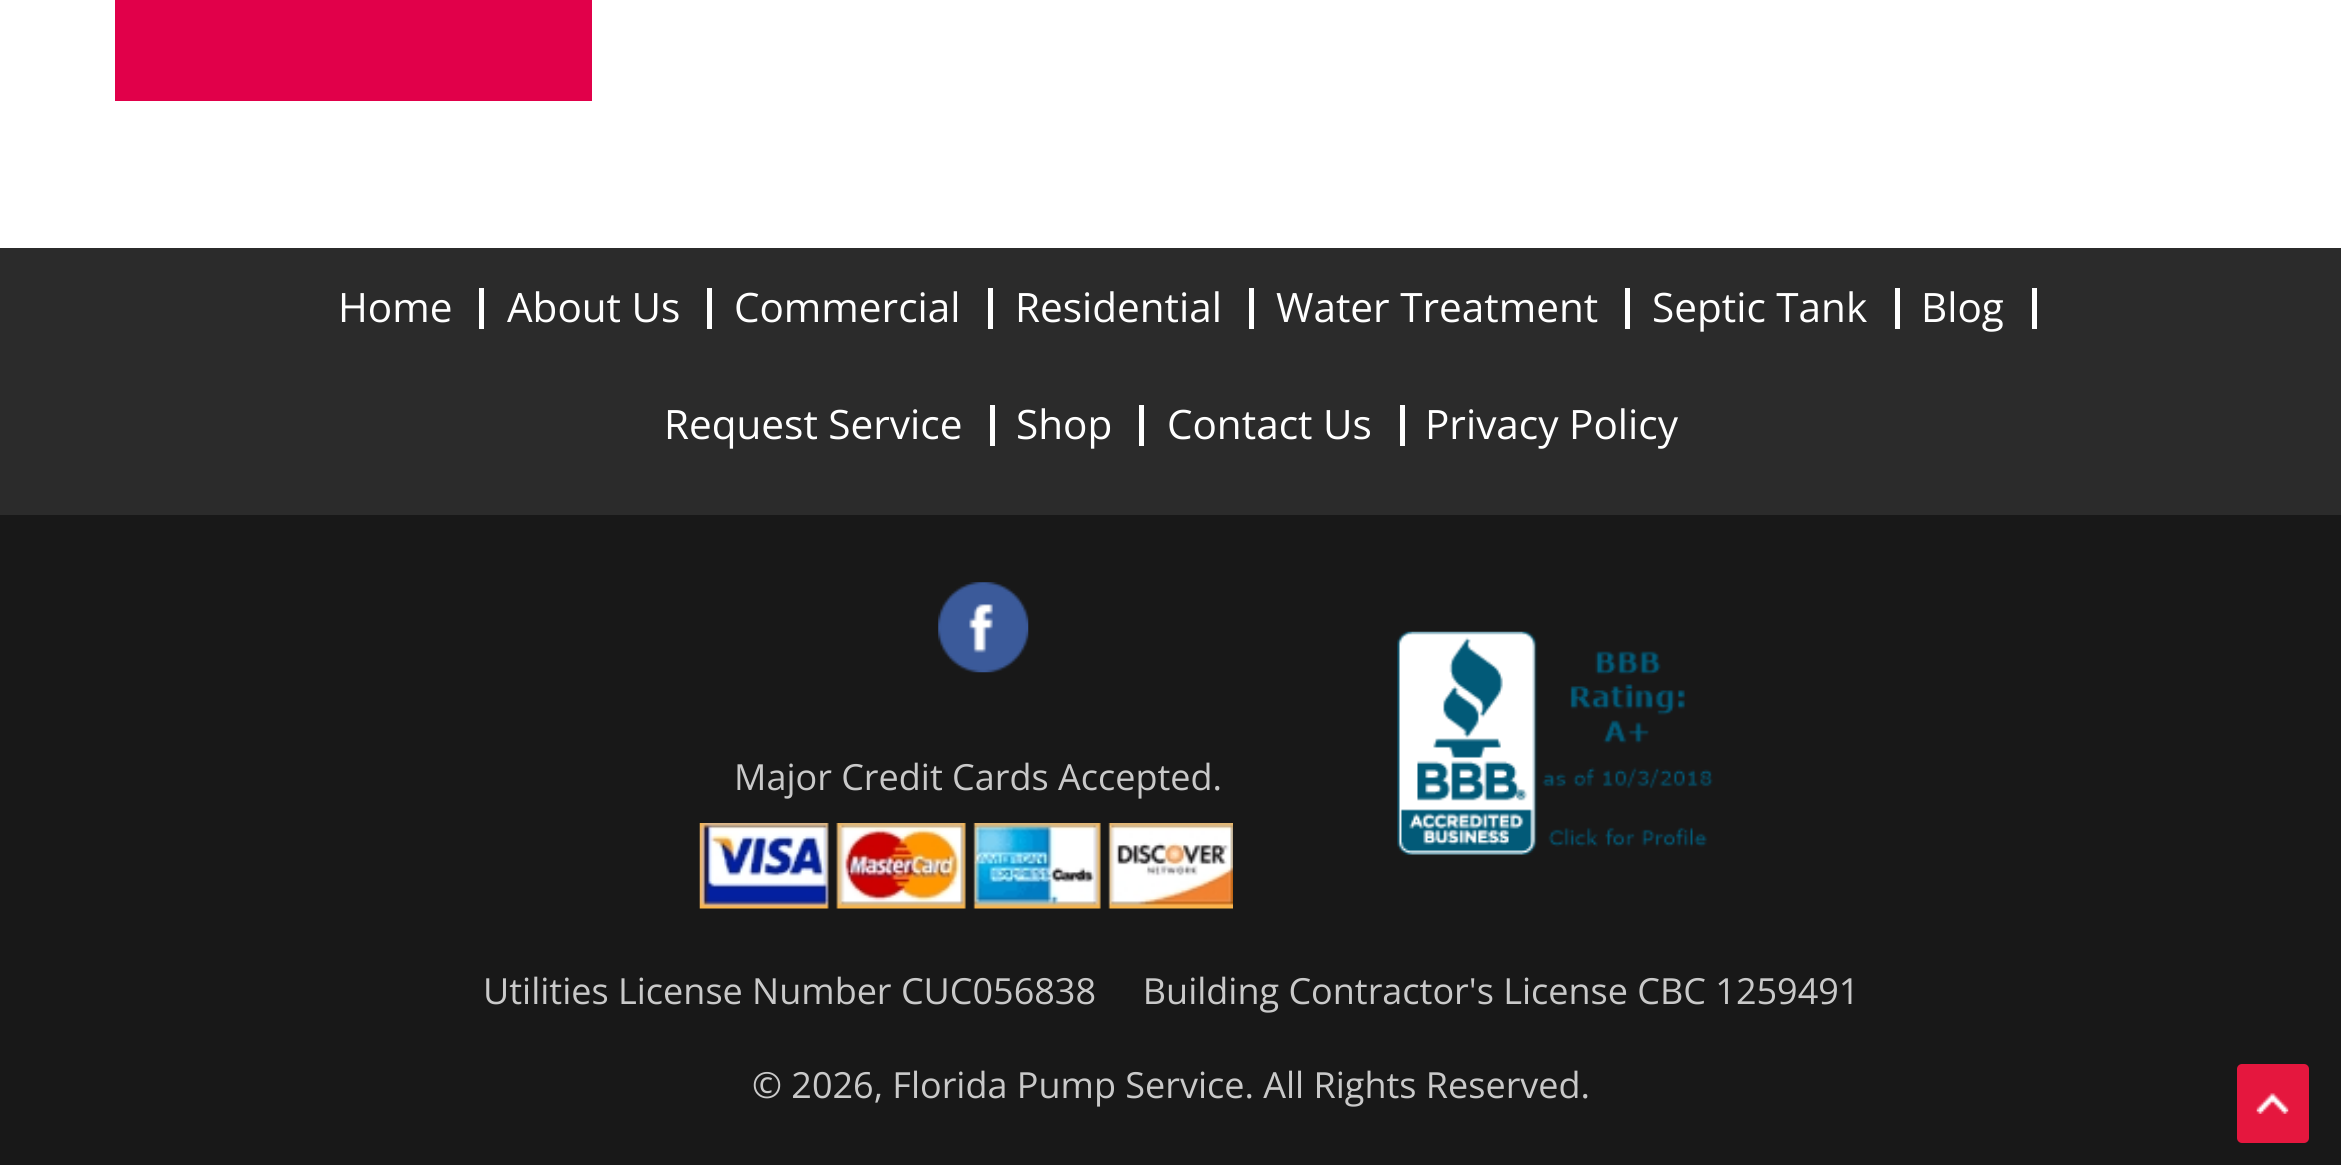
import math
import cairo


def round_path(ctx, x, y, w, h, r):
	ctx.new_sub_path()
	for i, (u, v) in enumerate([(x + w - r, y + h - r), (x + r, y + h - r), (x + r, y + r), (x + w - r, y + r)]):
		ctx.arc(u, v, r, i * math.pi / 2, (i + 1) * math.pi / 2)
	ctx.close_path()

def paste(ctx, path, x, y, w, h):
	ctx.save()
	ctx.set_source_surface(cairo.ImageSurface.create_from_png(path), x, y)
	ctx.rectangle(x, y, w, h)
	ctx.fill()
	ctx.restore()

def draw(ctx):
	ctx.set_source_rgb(1, 1, 1)
	ctx.paint()
	ctx.set_source_rgb(0.882, 0, 0.29)
	ctx.rectangle(115, 0, 477, 101)
	ctx.fill()
	ctx.set_source_rgb(0.169, 0.169, 0.169)
	ctx.rectangle(0, 248, 2341, 267)
	ctx.fill()
	ctx.select_font_face('Open Sans')
	ctx.set_font_size(40.5)
	ctx.set_source_rgb(1, 1, 1)
	ctx.move_to(338, 322)
	ctx.show_text('Home')
	ctx.rectangle(479, 288, 5, 41)
	ctx.fill()
	ctx.move_to(507, 322)
	ctx.show_text('About Us')
	ctx.rectangle(707, 288, 5, 41)
	ctx.fill()
	ctx.move_to(734, 322)
	ctx.show_text('Commercial')
	ctx.rectangle(988, 288, 5, 41)
	ctx.fill()
	ctx.move_to(1015, 322)
	ctx.show_text('Residential')
	ctx.rectangle(1249, 288, 5, 41)
	ctx.fill()
	ctx.move_to(1276, 322)
	ctx.show_text('Water Treatment')
	ctx.rectangle(1625, 288, 5, 41)
	ctx.fill()
	ctx.move_to(1652, 322)
	ctx.show_text('Septic Tank')
	ctx.rectangle(1895, 288, 5, 41)
	ctx.fill()
	ctx.move_to(1921, 322)
	ctx.show_text('Blog')
	ctx.rectangle(2032, 288, 5, 41)
	ctx.fill()
	ctx.move_to(664, 439)
	ctx.show_text('Request Service')
	ctx.rectangle(990, 405, 5, 41)
	ctx.fill()
	ctx.move_to(1016, 439)
	ctx.show_text('Shop')
	ctx.rectangle(1139, 405, 5, 41)
	ctx.fill()
	ctx.move_to(1167, 439)
	ctx.show_text('Contact Us')
	ctx.rectangle(1400, 405, 5, 41)
	ctx.fill()
	ctx.move_to(1425, 439)
	ctx.show_text('Privacy Policy')
	ctx.set_source_rgb(0.094, 0.094, 0.094)
	ctx.rectangle(0, 515, 2341, 650)
	ctx.fill()
	paste(ctx, 'media/1.png', 938, 582, 91, 91)
	ctx.set_font_size(36)
	ctx.set_source_rgb(0.788, 0.788, 0.788)
	ctx.move_to(734, 790)
	ctx.show_text('Major Credit Cards Accepted.')
	paste(ctx, 'media/2.png', 699, 823, 534, 86)
	paste(ctx, 'media/3.png', 1397, 631, 316, 224)
	ctx.move_to(483, 1004)
	ctx.show_text('Utilities License Number CUC056838     Building Contractor\'s License CBC 1259491')
	ctx.move_to(752, 1098)
	ctx.show_text('© 2026, Florida Pump Service. All Rights Reserved.')
	ctx.set_source_rgb(0.898, 0.09, 0.243)
	round_path(ctx, 2237, 1064, 72, 79, 5)
	ctx.fill()
	paste(ctx, 'media/4.png', 2256, 1093, 33, 21)


surface = cairo.ImageSurface(cairo.FORMAT_RGB24, 2341, 1165)
ctx = cairo.Context(surface)
options = cairo.FontOptions()
options.set_hint_metrics(cairo.HINT_METRICS_OFF)
options.set_hint_style(cairo.HINT_STYLE_NONE)
ctx.set_font_options(options)
ctx.set_miter_limit(4)
draw(ctx)
surface.write_to_png('image.png')
